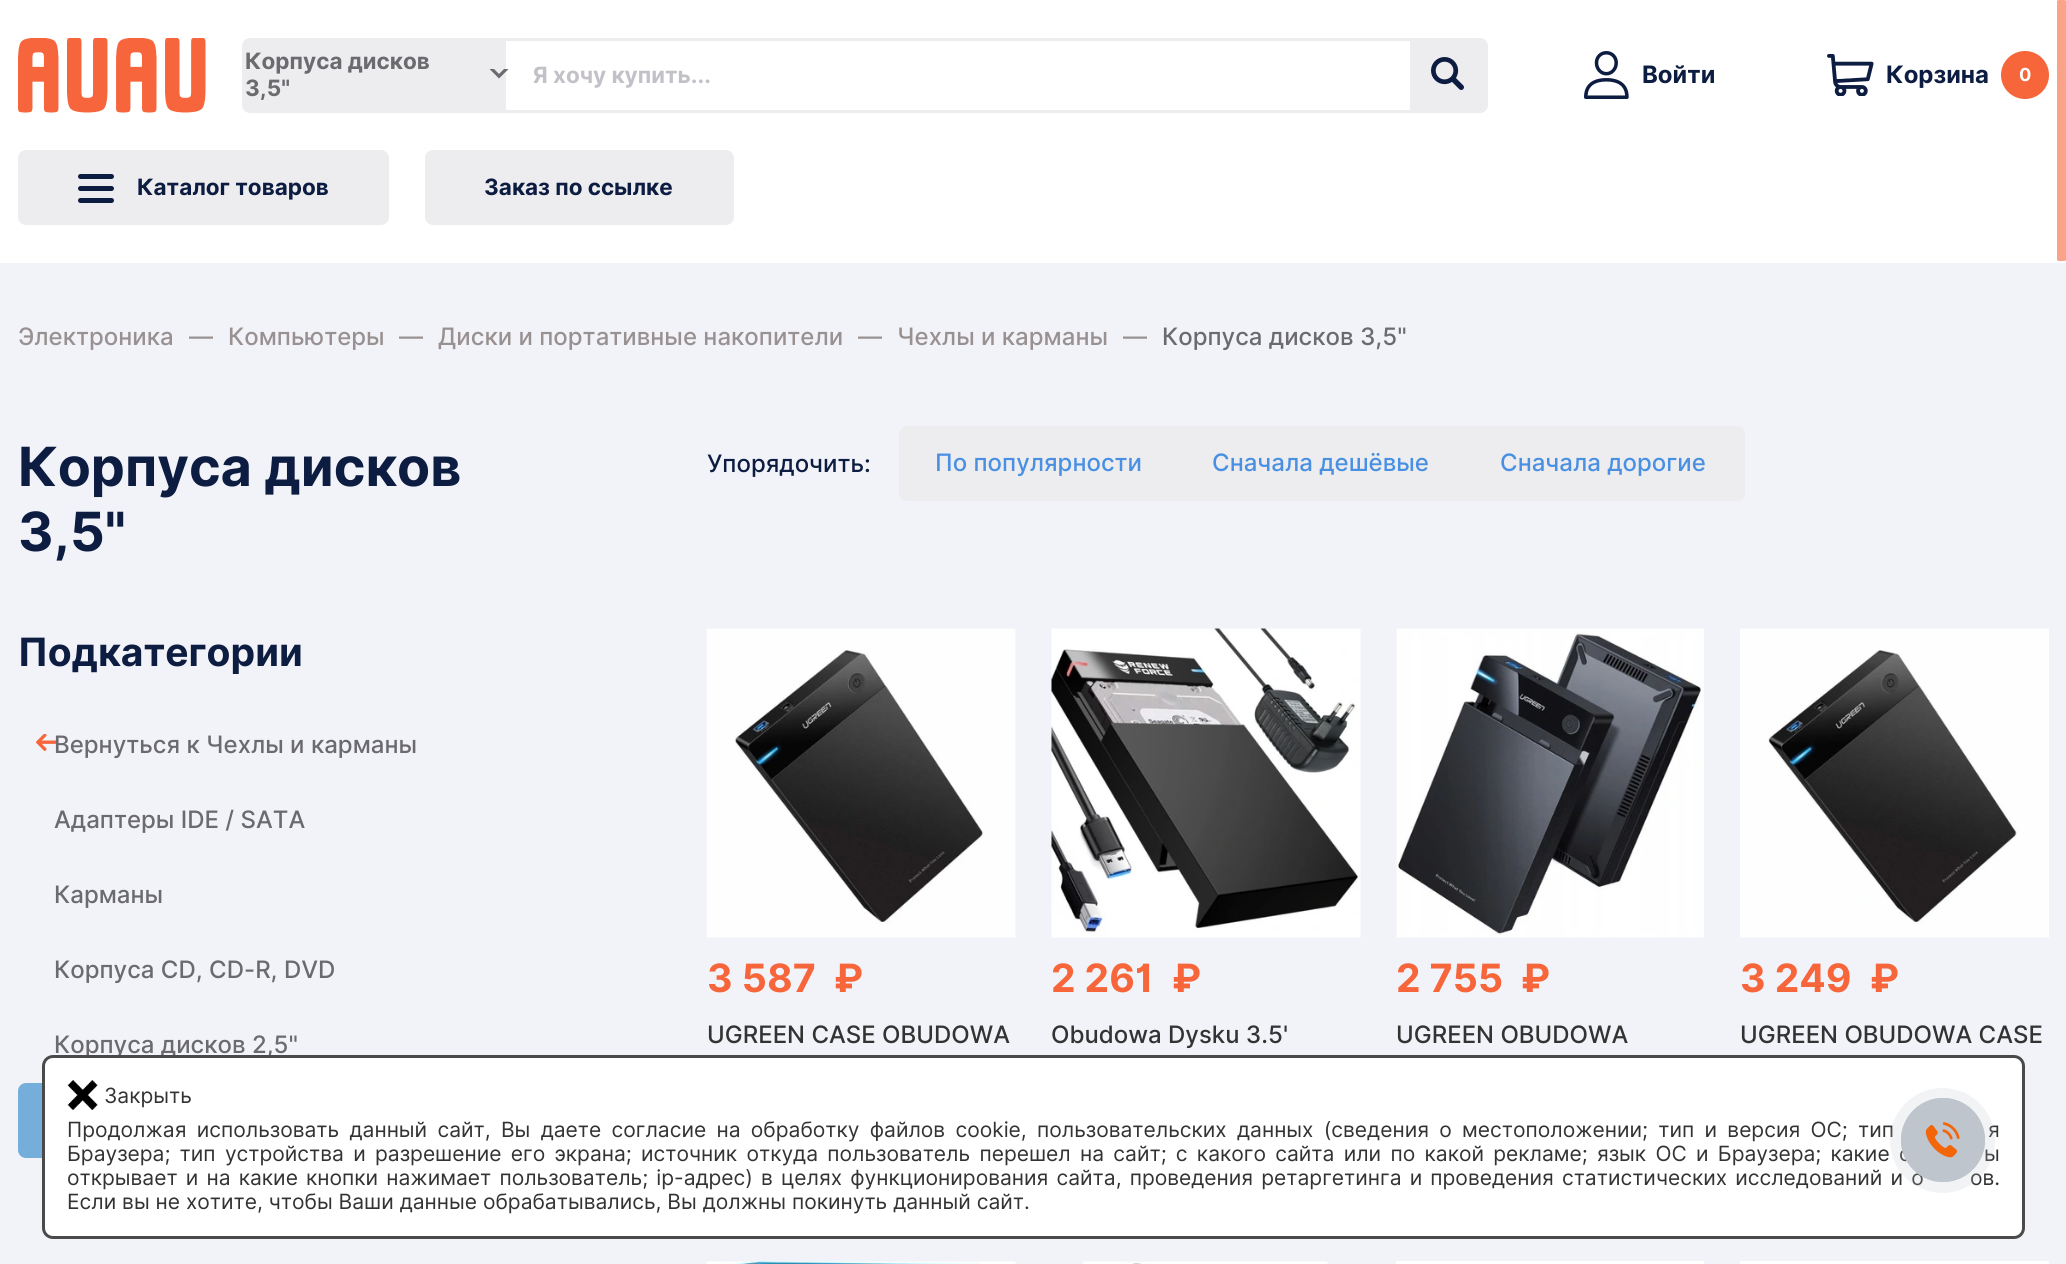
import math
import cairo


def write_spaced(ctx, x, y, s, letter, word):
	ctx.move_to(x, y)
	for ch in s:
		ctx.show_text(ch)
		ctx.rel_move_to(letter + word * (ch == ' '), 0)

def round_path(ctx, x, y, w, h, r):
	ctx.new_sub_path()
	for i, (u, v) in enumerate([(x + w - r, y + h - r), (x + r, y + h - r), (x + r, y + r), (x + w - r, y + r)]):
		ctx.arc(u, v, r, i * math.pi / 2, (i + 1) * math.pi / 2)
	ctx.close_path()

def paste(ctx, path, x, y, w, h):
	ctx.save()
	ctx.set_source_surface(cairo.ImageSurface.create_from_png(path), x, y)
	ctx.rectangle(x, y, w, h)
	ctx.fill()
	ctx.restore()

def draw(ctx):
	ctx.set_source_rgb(0.949, 0.953, 0.969)
	ctx.paint()
	ctx.set_source_rgb(1, 1, 1)
	ctx.rectangle(0, 0, 2066, 263)
	ctx.fill()
	paste(ctx, 'media/1.png', 18, 38, 188, 75)
	round_path(ctx, 243.5, 39.5, 1243, 72, 6.5)
	ctx.set_source_rgb(0.929, 0.929, 0.937)
	ctx.set_line_width(3)
	ctx.stroke()
	ctx.rectangle(245, 41, 261, 69)
	ctx.fill()
	ctx.select_font_face('Inter', cairo.FONT_SLANT_NORMAL, cairo.FONT_WEIGHT_BOLD)
	ctx.set_font_size(22.5)
	ctx.set_source_rgb(0.42, 0.416, 0.431)
	ctx.move_to(245, 69)
	ctx.show_text('Корпуса дисков')
	ctx.new_path()
	ctx.move_to(508.5, 69)
	ctx.line_to(499, 78.5)
	ctx.line_to(499, 74)
	ctx.line_to(504, 69)
	ctx.close_path()
	ctx.move_to(499, 78.5)
	ctx.line_to(489.5, 69)
	ctx.line_to(494, 69)
	ctx.line_to(499, 74)
	ctx.close_path()
	ctx.fill()
	ctx.move_to(245, 96)
	ctx.show_text('3,5"')
	ctx.set_source_rgb(0.765, 0.757, 0.78)
	ctx.move_to(533, 83)
	ctx.show_text('Я хочу купить...')
	ctx.set_source_rgb(0.929, 0.929, 0.937)
	ctx.rectangle(1410, 41, 75, 69)
	ctx.fill()
	paste(ctx, 'media/2.png', 1431, 57, 33, 33)
	paste(ctx, 'media/3.png', 1584, 51, 45, 48)
	ctx.set_font_size(24)
	ctx.set_source_rgb(0.051, 0.11, 0.255)
	ctx.move_to(1642, 83)
	ctx.show_text('Войти')
	paste(ctx, 'media/4.png', 1827, 54, 47, 42)
	ctx.move_to(1886, 83)
	ctx.show_text('Корзина')
	ctx.set_source_rgb(0.965, 0.396, 0.231)
	ctx.new_path()
	ctx.arc(2025, 75, 24, 0, 2 * math.pi)
	ctx.fill()
	ctx.set_font_size(18)
	ctx.set_source_rgb(1, 1, 1)
	ctx.move_to(2019, 81)
	ctx.show_text('0')
	ctx.set_source_rgb(0.929, 0.929, 0.937)
	round_path(ctx, 18, 150, 371, 75, 8)
	ctx.fill()
	ctx.set_source_rgb(0.051, 0.11, 0.255)
	round_path(ctx, 78, 186, 36, 5, 2.5)
	ctx.fill()
	round_path(ctx, 78, 174, 36, 5, 2.5)
	ctx.fill()
	round_path(ctx, 78, 198, 36, 5, 2.5)
	ctx.fill()
	ctx.set_font_size(22.5)
	ctx.move_to(137, 195)
	ctx.show_text('Каталог товаров')
	ctx.set_source_rgb(0.929, 0.929, 0.937)
	round_path(ctx, 425, 150, 309, 75, 8)
	ctx.fill()
	ctx.set_source_rgb(0.051, 0.11, 0.255)
	ctx.move_to(484, 195)
	ctx.show_text('Заказ по ссылке')
	ctx.select_font_face('Inter Medium')
	ctx.set_font_size(24)
	ctx.set_source_rgb(0.6, 0.569, 0.569)
	for x, y, s in [
		(18, 345, 'Электроника'),
		(189, 345, '—'),
		(228, 345, 'Компьютеры'),
		(399, 345, '—'),
		(438, 345, 'Диски и портативные накопители'),
		(858, 345, '—'),
		(897, 345, 'Чехлы и карманы'),
		(1123, 345, '—'),
	]:
		ctx.move_to(x, y)
		ctx.show_text(s)
	ctx.set_source_rgb(0.42, 0.416, 0.431)
	ctx.move_to(1162, 345)
	ctx.show_text('Корпуса дисков 3,5"')
	ctx.select_font_face('Inter', cairo.FONT_SLANT_NORMAL, cairo.FONT_WEIGHT_BOLD)
	ctx.set_font_size(54)
	ctx.set_source_rgb(0.051, 0.11, 0.255)
	ctx.move_to(18, 486)
	ctx.show_text('Корпуса дисков')
	ctx.move_to(18, 551)
	ctx.show_text('3,5"')
	ctx.set_font_size(39)
	ctx.move_to(18, 666)
	ctx.show_text('Подкатегории')
	paste(ctx, 'media/5.png', 36, 734, 21, 17)
	ctx.select_font_face('Inter Medium')
	ctx.set_font_size(24)
	ctx.set_source_rgb(0.42, 0.416, 0.431)
	for x, y, s in [
		(54, 753, 'Вернуться к Чехлы и карманы'),
		(54, 828, 'Адаптеры IDE / SATA'),
		(54, 903, 'Карманы'),
		(54, 978, 'Корпуса CD, CD-R, DVD'),
		(54, 1053, 'Корпуса дисков 2,5"'),
	]:
		ctx.move_to(x, y)
		ctx.show_text(s)
	ctx.set_source_rgb(0.459, 0.682, 0.855)
	round_path(ctx, 18, 1083, 482, 75, 8)
	ctx.fill()
	ctx.set_source_rgb(0.051, 0.11, 0.255)
	ctx.move_to(707, 472)
	ctx.show_text('Упорядочить:')
	ctx.set_source_rgb(0.929, 0.929, 0.937)
	round_path(ctx, 899, 426, 846, 75, 8)
	ctx.fill()
	ctx.set_source_rgb(0.29, 0.565, 0.886)
	for x, y, s in [
		(935, 471, 'По популярности'),
		(1212, 471, 'Сначала дешёвые'),
		(1500, 471, 'Сначала дорогие'),
	]:
		ctx.move_to(x, y)
		ctx.show_text(s)
	paste(ctx, 'media/6.png', 706, 628, 310, 310)
	ctx.select_font_face('Inter', cairo.FONT_SLANT_NORMAL, cairo.FONT_WEIGHT_BOLD)
	ctx.set_font_size(39)
	ctx.set_source_rgb(0.965, 0.396, 0.231)
	ctx.move_to(707, 992)
	ctx.show_text('3 587')
	ctx.move_to(834, 992)
	ctx.show_text('₽')
	ctx.select_font_face('Inter Medium')
	ctx.set_font_size(24)
	ctx.set_source_rgb(0.2, 0.2, 0.2)
	ctx.move_to(707, 1043)
	ctx.show_text('UGREEN CASE OBUDOWA')
	paste(ctx, 'media/7.png', 1051, 628, 310, 310)
	ctx.select_font_face('Inter', cairo.FONT_SLANT_NORMAL, cairo.FONT_WEIGHT_BOLD)
	ctx.set_font_size(39)
	ctx.set_source_rgb(0.965, 0.396, 0.231)
	ctx.move_to(1051, 992)
	ctx.show_text('2 261')
	ctx.move_to(1172, 992)
	ctx.show_text('₽')
	ctx.select_font_face('Inter Medium')
	ctx.set_font_size(24)
	ctx.set_source_rgb(0.2, 0.2, 0.2)
	ctx.move_to(1051, 1043)
	ctx.show_text('Obudowa Dysku 3.5\'')
	paste(ctx, 'media/8.png', 1396, 628, 308, 310)
	ctx.select_font_face('Inter', cairo.FONT_SLANT_NORMAL, cairo.FONT_WEIGHT_BOLD)
	ctx.set_font_size(39)
	ctx.set_source_rgb(0.965, 0.396, 0.231)
	ctx.move_to(1396, 992)
	ctx.show_text('2 755')
	ctx.move_to(1521, 992)
	ctx.show_text('₽')
	ctx.select_font_face('Inter Medium')
	ctx.set_font_size(24)
	ctx.set_source_rgb(0.2, 0.2, 0.2)
	ctx.move_to(1396, 1043)
	ctx.show_text('UGREEN OBUDOWA')
	paste(ctx, 'media/9.png', 1740, 628, 309, 310)
	ctx.select_font_face('Inter', cairo.FONT_SLANT_NORMAL, cairo.FONT_WEIGHT_BOLD)
	ctx.set_font_size(39)
	ctx.set_source_rgb(0.965, 0.396, 0.231)
	ctx.move_to(1740, 992)
	ctx.show_text('3 249')
	ctx.move_to(1870, 992)
	ctx.show_text('₽')
	ctx.select_font_face('Inter Medium')
	ctx.set_font_size(24)
	ctx.set_source_rgb(0.2, 0.2, 0.2)
	ctx.move_to(1740, 1043)
	ctx.show_text('UGREEN OBUDOWA CASE')
	paste(ctx, 'media/10.png', 706, 1261, 310, 3)
	paste(ctx, 'media/11.png', 1083, 1261, 245, 3)
	ctx.set_source_rgb(1, 1, 1)
	ctx.rectangle(1396, 1261, 308, 3)
	ctx.fill()
	ctx.rectangle(1740, 1261, 309, 3)
	ctx.fill()
	round_path(ctx, 43.5, 1056.5, 1980, 181, 9.5)
	ctx.fill_preserve()
	ctx.set_source_rgb(0.29, 0.29, 0.29)
	ctx.stroke()
	paste(ctx, 'media/12.png', 67, 1080, 31, 30)
	ctx.select_font_face('Inter')
	ctx.set_font_size(21)
	ctx.set_source_rgb(0.2, 0.2, 0.2)
	ctx.move_to(104, 1103)
	ctx.show_text('Закрыть')
	write_spaced(ctx, 67, 1137, 'Продолжая использовать данный сайт, Вы даете согласие на обработку файлов cookie, пользовательских данных (сведения о местоположении; тип и версия ОС; тип', 0, 4.4)
	write_spaced(ctx, 1988, 1137, 'я', 0, 4.4)
	write_spaced(ctx, 67, 1161, 'Браузера; тип устройства и разрешение его экрана; источник откуда пользователь перешел на сайт; с какого сайта или по какой рекламе; язык ОС и Браузера; какие с', 0, 3.4)
	write_spaced(ctx, 1984, 1161, 'ы', 0, 3.4)
	write_spaced(ctx, 67, 1185, 'открывает и на какие кнопки нажимает пользователь; ip-адрес) в целях функционирования сайта, проведения ретаргетинга и проведения статистических исследований и о', 0, 2.25)
	write_spaced(ctx, 1970, 1185, 'ов.', 0, 2.25)
	ctx.move_to(67, 1209)
	ctx.show_text('Если вы не хотите, чтобы Ваши данные обрабатывались, Вы должны покинуть данный сайт.')
	ctx.set_source_rgb(0.98, 0.639, 0.537)
	round_path(ctx, 2057, 0, 9, 261, 1.5)
	ctx.fill()
	ctx.set_source_rgba(0.749, 0.773, 0.804, 0.2)
	ctx.arc(1942.5, 1140.5, 52.5, 0, 2 * math.pi)
	ctx.fill()
	ctx.arc(1943, 1140, 41.5, 0, 2 * math.pi)
	ctx.set_source_rgb(0.749, 0.773, 0.804)
	ctx.set_line_width(1)
	ctx.stroke()
	ctx.arc(1943, 1140, 42, 0, 2 * math.pi)
	ctx.fill()
	paste(ctx, 'media/13.png', 1925, 1122, 35, 36)


surface = cairo.ImageSurface(cairo.FORMAT_RGB24, 2066, 1264)
ctx = cairo.Context(surface)
options = cairo.FontOptions()
options.set_hint_metrics(cairo.HINT_METRICS_OFF)
options.set_hint_style(cairo.HINT_STYLE_NONE)
ctx.set_font_options(options)
ctx.set_miter_limit(4)
draw(ctx)
surface.write_to_png('image.png')
